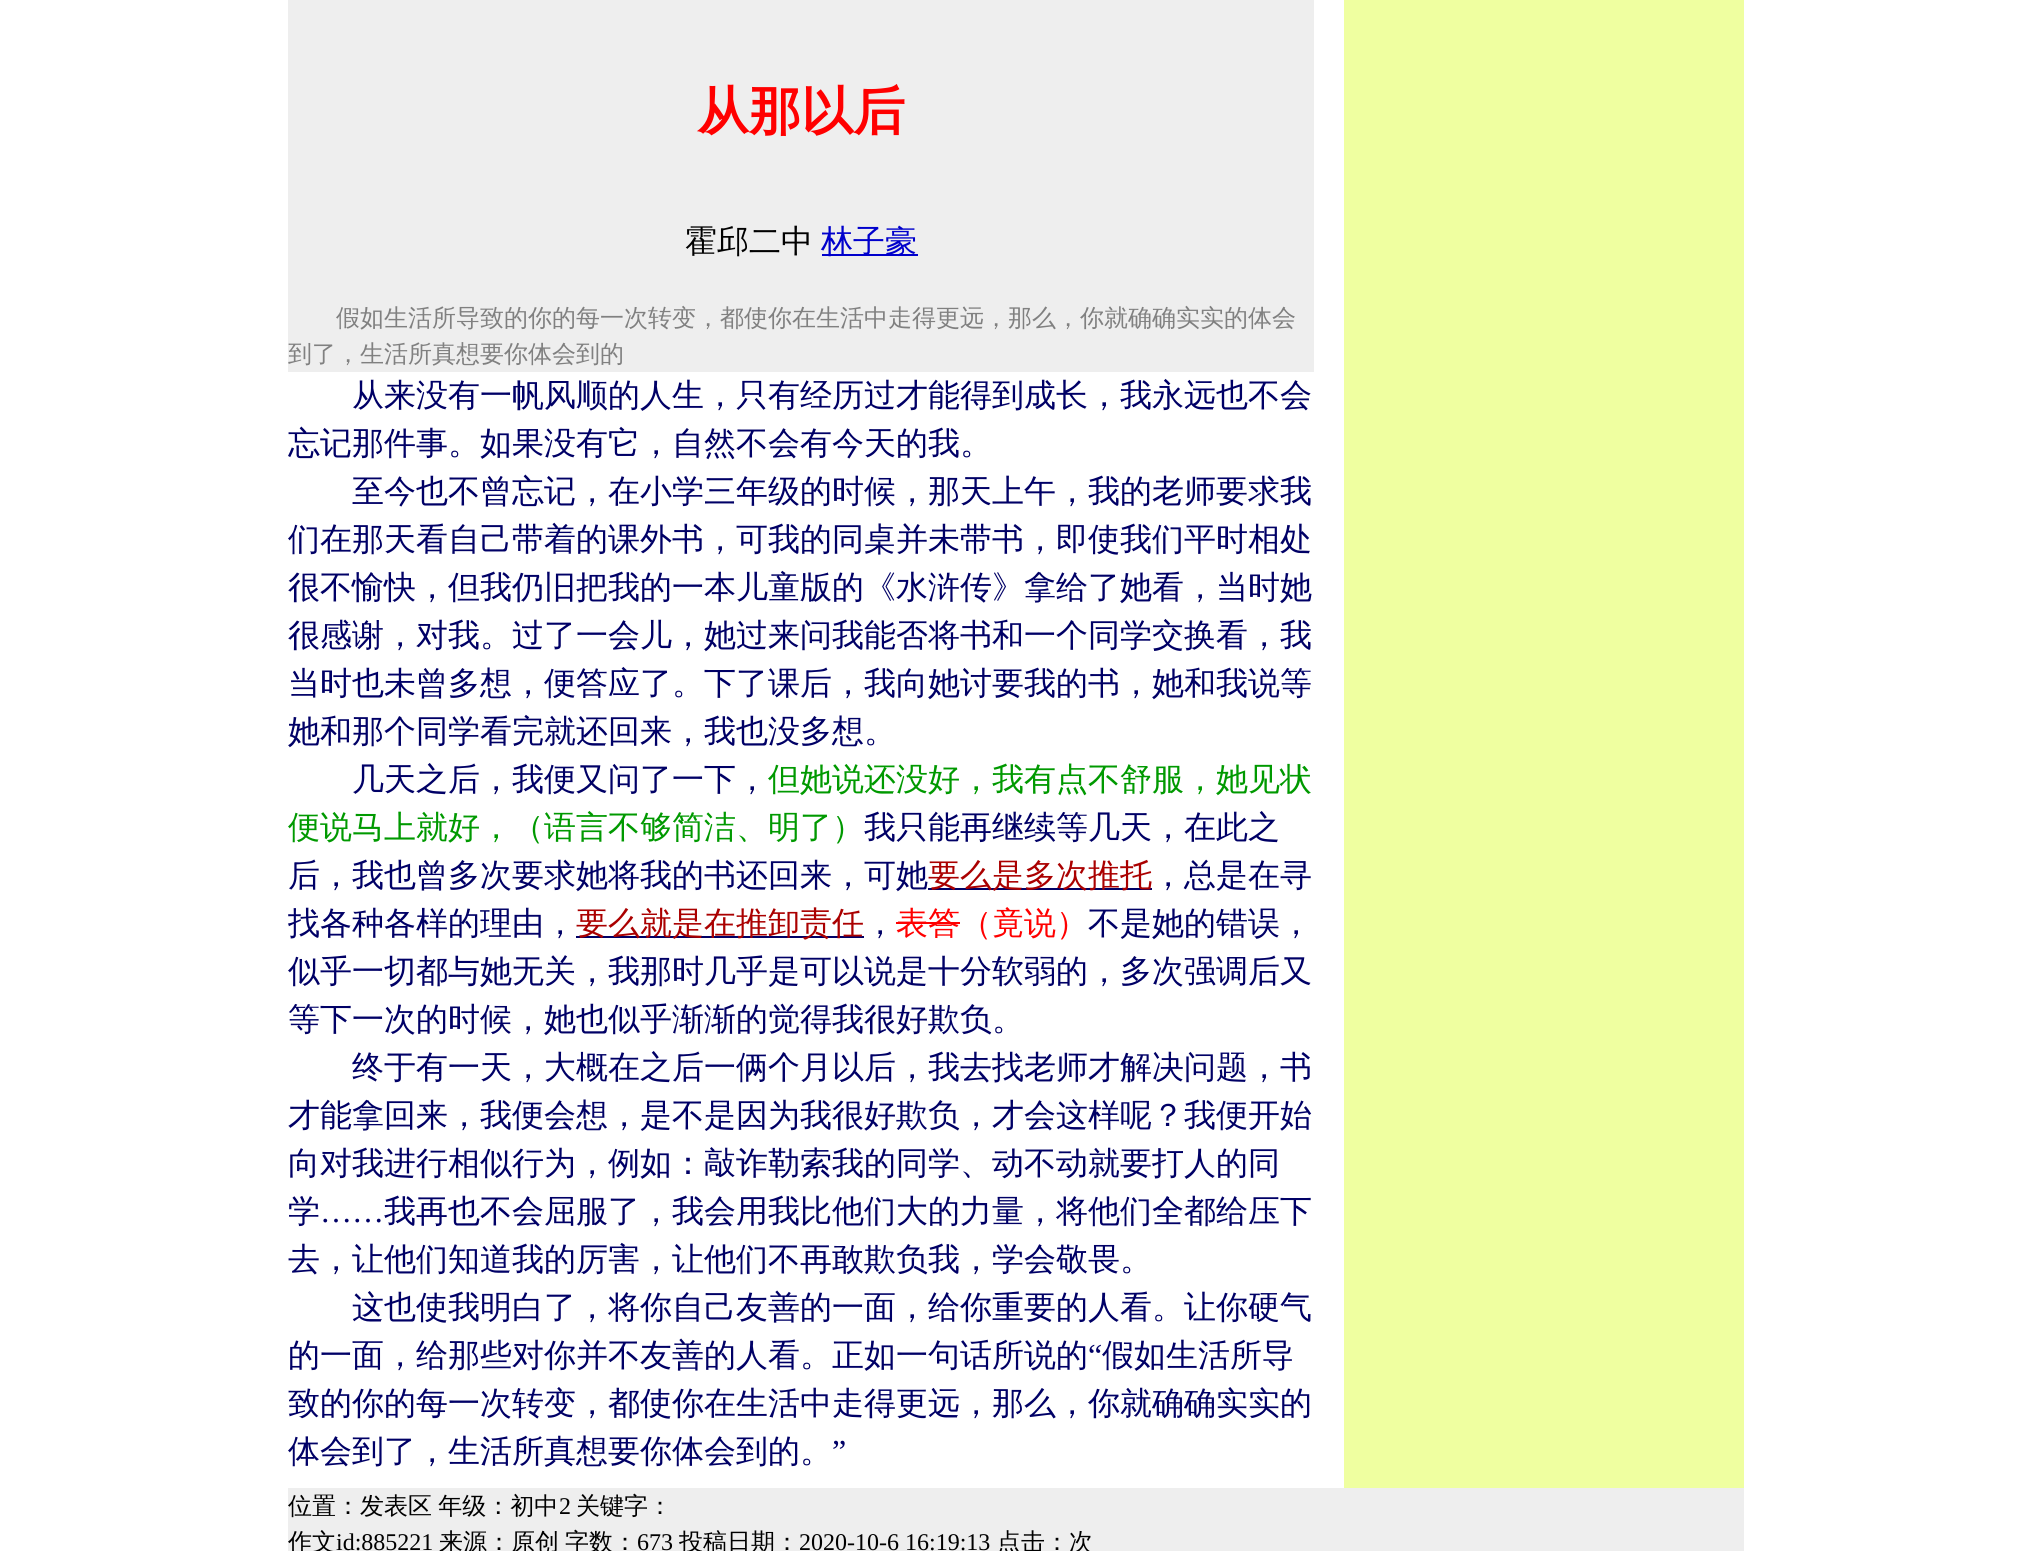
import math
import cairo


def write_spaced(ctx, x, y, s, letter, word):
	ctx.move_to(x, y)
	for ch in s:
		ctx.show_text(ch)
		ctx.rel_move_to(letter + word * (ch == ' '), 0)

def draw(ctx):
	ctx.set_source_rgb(1, 1, 1)
	ctx.paint()
	ctx.set_source_rgb(0.933, 0.933, 0.933)
	ctx.rectangle(288, 0, 1026, 372)
	ctx.fill()
	ctx.select_font_face('WenQuanYi Zen Hei', cairo.FONT_SLANT_NORMAL, cairo.FONT_WEIGHT_BOLD)
	ctx.set_font_size(52)
	ctx.set_source_rgb(1, 0, 0)
	ctx.move_to(697, 129)
	ctx.show_text('从那以后')
	ctx.select_font_face('WenQuanYi Zen Hei Medium')
	ctx.set_font_size(32)
	ctx.set_source_rgb(0, 0, 0)
	ctx.move_to(685, 252)
	ctx.show_text('霍邱二中')
	ctx.set_source_rgb(0, 0, 0.8)
	ctx.rectangle(822, 254, 96, 2)
	ctx.fill()
	ctx.move_to(821, 252)
	ctx.show_text('林子豪')
	ctx.set_font_size(24)
	ctx.set_source_rgb(0.502, 0.502, 0.502)
	ctx.move_to(336, 326)
	ctx.show_text('假如生活所导致的你的每一次转变，都使你在生活中走得更远，那么，你就确确实实的体会')
	ctx.move_to(288, 362)
	ctx.show_text('到了，生活所真想要你体会到的')
	ctx.set_font_size(32)
	ctx.set_source_rgb(0, 0, 0.4)
	for x, y, s in [
		(352, 406, '从来没有一帆风顺的人生，只有经历过才能得到成长，我永远也不会'),
		(288, 454, '忘记那件事。如果没有它，自然不会有今天的我。'),
		(352, 502, '至今也不曾忘记，在小学三年级的时候，那天上午，我的老师要求我'),
		(288, 550, '们在那天看自己带着的课外书，可我的同桌并未带书，即使我们平时相处'),
		(288, 598, '很不愉快，但我仍旧把我的一本儿童版的《水浒传》拿给了她看，当时她'),
		(288, 646, '很感谢，对我。过了一会儿，她过来问我能否将书和一个同学交换看，我'),
		(288, 694, '当时也未曾多想，便答应了。下了课后，我向她讨要我的书，她和我说等'),
		(288, 742, '她和那个同学看完就还回来，我也没多想。'),
		(352, 790, '几天之后，我便又问了一下，'),
	]:
		ctx.move_to(x, y)
		ctx.show_text(s)
	ctx.set_source_rgb(0, 0.6, 0)
	ctx.move_to(768, 790)
	ctx.show_text('但她说还没好，我有点不舒服，她见状')
	ctx.move_to(288, 838)
	ctx.show_text('便说马上就好，（语言不够简洁、明了）')
	ctx.set_source_rgb(0, 0, 0.4)
	ctx.move_to(864, 838)
	ctx.show_text('我只能再继续等几天，在此之')
	ctx.move_to(288, 886)
	ctx.show_text('后，我也曾多次要求她将我的书还回来，可她')
	ctx.rectangle(928, 888, 224, 2)
	ctx.fill()
	ctx.set_source_rgb(0.667, 0, 0)
	ctx.move_to(928, 886)
	ctx.show_text('要么是多次推托')
	ctx.set_source_rgb(0, 0, 0.4)
	ctx.move_to(1152, 886)
	ctx.show_text('，总是在寻')
	ctx.move_to(288, 934)
	ctx.show_text('找各种各样的理由，')
	ctx.rectangle(576, 936, 288, 2)
	ctx.fill()
	ctx.set_source_rgb(0.667, 0, 0)
	ctx.move_to(576, 934)
	ctx.show_text('要么就是在推卸责任')
	ctx.set_source_rgb(0, 0, 0.4)
	ctx.move_to(864, 934)
	ctx.show_text('，')
	ctx.set_source_rgb(1, 0, 0)
	ctx.move_to(896, 934)
	ctx.show_text('表答（竟说）')
	ctx.rectangle(896, 922, 64, 2)
	ctx.fill()
	ctx.set_source_rgb(0, 0, 0.4)
	for x, y, s in [
		(1088, 934, '不是她的错误，'),
		(288, 982, '似乎一切都与她无关，我那时几乎是可以说是十分软弱的，多次强调后又'),
		(288, 1030, '等下一次的时候，她也似乎渐渐的觉得我很好欺负。'),
		(352, 1078, '终于有一天，大概在之后一俩个月以后，我去找老师才解决问题，书'),
		(288, 1126, '才能拿回来，我便会想，是不是因为我很好欺负，才会这样呢？我便开始'),
		(288, 1174, '向对我进行相似行为，例如：敲诈勒索我的同学、动不动就要打人的同'),
		(288, 1222, '学'),
	]:
		ctx.move_to(x, y)
		ctx.show_text(s)
	ctx.select_font_face('Liberation Serif')
	ctx.move_to(320, 1222)
	ctx.show_text('……')
	ctx.select_font_face('WenQuanYi Zen Hei Medium')
	for x, y, s in [
		(384, 1222, '我再也不会屈服了，我会用我比他们大的力量，将他们全都给压下'),
		(288, 1270, '去，让他们知道我的厉害，让他们不再敢欺负我，学会敬畏。'),
		(352, 1318, '这也使我明白了，将你自己友善的一面，给你重要的人看。让你硬气'),
		(288, 1366, '的一面，给那些对你并不友善的人看。正如一句话所说的'),
	]:
		ctx.move_to(x, y)
		ctx.show_text(s)
	ctx.select_font_face('Liberation Serif')
	ctx.move_to(1088, 1366)
	ctx.show_text('“')
	ctx.select_font_face('WenQuanYi Zen Hei Medium')
	for x, y, s in [
		(1102, 1366, '假如生活所导'),
		(288, 1414, '致的你的每一次转变，都使你在生活中走得更远，那么，你就确确实实的'),
		(288, 1462, '体会到了，生活所真想要你体会到的。'),
	]:
		ctx.move_to(x, y)
		ctx.show_text(s)
	ctx.select_font_face('Liberation Serif')
	ctx.move_to(832, 1462)
	ctx.show_text('”')
	ctx.set_source_rgb(0.937, 1, 0.627)
	ctx.rectangle(1344, 0, 400, 1488)
	ctx.fill()
	ctx.set_source_rgb(0.933, 0.933, 0.933)
	ctx.rectangle(288, 1488, 1456, 63)
	ctx.fill()
	ctx.select_font_face('WenQuanYi Zen Hei Medium')
	ctx.set_font_size(24)
	ctx.set_source_rgb(0, 0, 0)
	write_spaced(ctx, 288, 1514, '位置：发表区 年级：初中', 0, -1)
	ctx.select_font_face('Liberation Serif')
	ctx.move_to(559, 1514)
	ctx.show_text('2')
	ctx.select_font_face('WenQuanYi Zen Hei Medium')
	ctx.move_to(576, 1514)
	ctx.show_text('关键字：')
	ctx.move_to(288, 1550)
	ctx.show_text('作文')
	ctx.select_font_face('Liberation Serif')
	ctx.move_to(336, 1550)
	ctx.show_text('id:885221')
	ctx.select_font_face('WenQuanYi Zen Hei Medium')
	ctx.move_to(439, 1550)
	ctx.show_text('来源：原创')
	ctx.move_to(565, 1550)
	ctx.show_text('字数：')
	ctx.select_font_face('Liberation Serif')
	ctx.move_to(637, 1550)
	ctx.show_text('673')
	ctx.select_font_face('WenQuanYi Zen Hei Medium')
	ctx.move_to(679, 1550)
	ctx.show_text('投稿日期：')
	ctx.select_font_face('Liberation Serif')
	ctx.move_to(799, 1550)
	ctx.show_text('2020-10-6 16:19:13')
	ctx.select_font_face('WenQuanYi Zen Hei Medium')
	ctx.move_to(997, 1550)
	ctx.show_text('点击：次')


surface = cairo.ImageSurface(cairo.FORMAT_RGB24, 2031, 1551)
ctx = cairo.Context(surface)
options = cairo.FontOptions()
options.set_hint_metrics(cairo.HINT_METRICS_OFF)
options.set_hint_style(cairo.HINT_STYLE_NONE)
ctx.set_font_options(options)
ctx.set_miter_limit(4)
draw(ctx)
surface.write_to_png('image.png')
